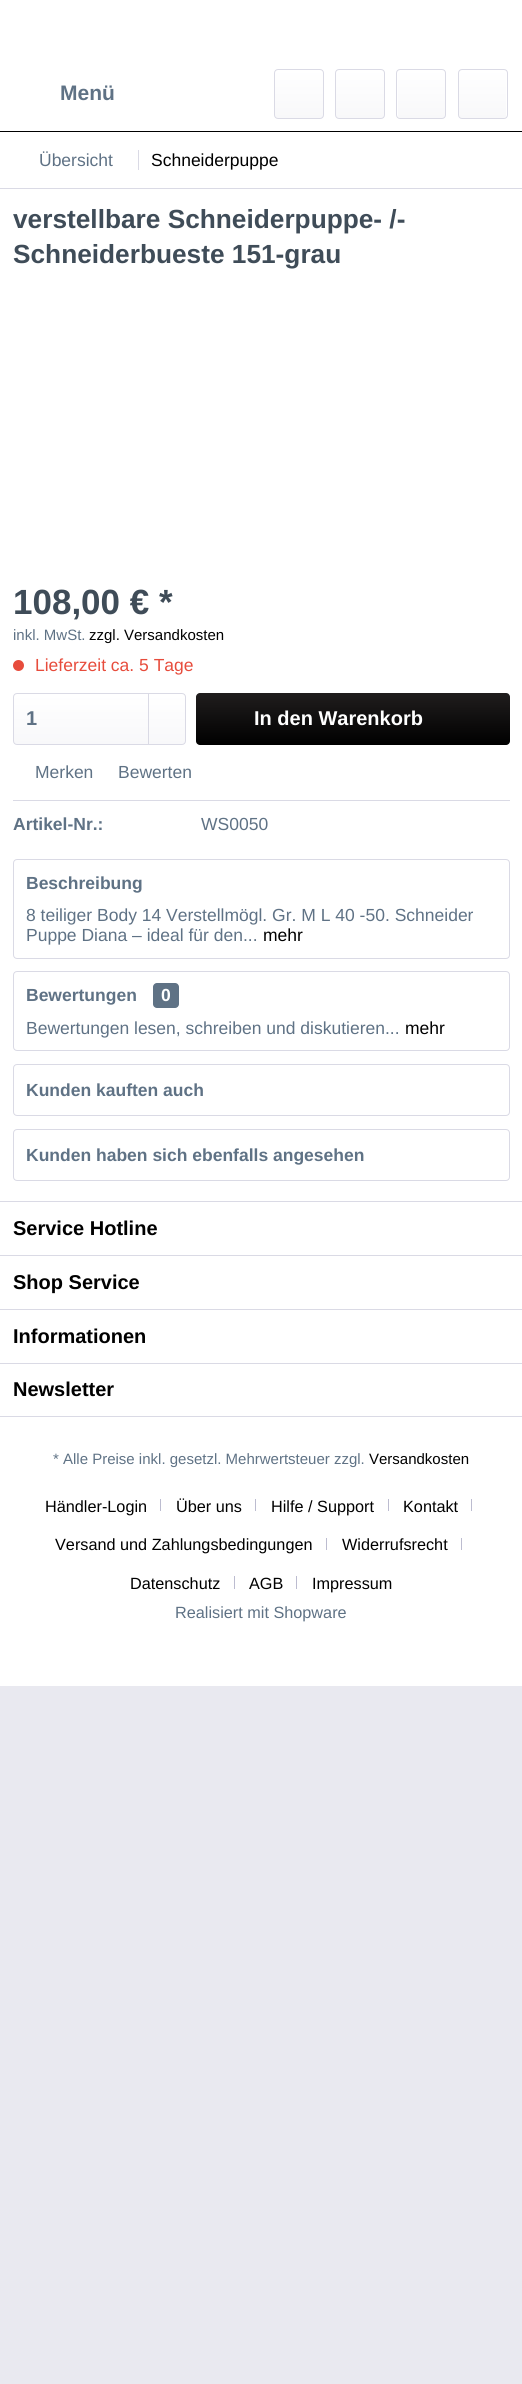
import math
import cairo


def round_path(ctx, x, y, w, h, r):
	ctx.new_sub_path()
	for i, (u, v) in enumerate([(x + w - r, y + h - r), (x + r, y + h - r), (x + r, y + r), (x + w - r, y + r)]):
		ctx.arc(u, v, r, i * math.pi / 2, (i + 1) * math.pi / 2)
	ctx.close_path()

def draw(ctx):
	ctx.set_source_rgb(0.914, 0.914, 0.941)
	ctx.paint()
	ctx.set_source_rgb(1, 1, 1)
	ctx.rectangle(0, 0, 522, 1201)
	ctx.fill()
	ctx.set_source_rgb(0, 0, 0)
	ctx.rectangle(0, 131, 522, 1)
	ctx.fill()
	ctx.select_font_face('Liberation Sans', cairo.FONT_SLANT_NORMAL, cairo.FONT_WEIGHT_BOLD)
	ctx.set_font_size(21)
	ctx.set_source_rgb(0.373, 0.447, 0.522)
	ctx.move_to(60, 100)
	ctx.show_text('Menü')
	gradient = cairo.LinearGradient(299, 70, 299, 118)
	gradient.add_color_stop_rgba(0, 1, 1, 1, 1)
	gradient.add_color_stop_rgba(1, 0.973, 0.973, 0.98, 1)
	ctx.set_source(gradient)
	round_path(ctx, 275, 70, 48, 48, 2.5)
	ctx.fill()
	round_path(ctx, 274.5, 69.5, 49, 49, 3.5)
	ctx.set_source_rgb(0.855, 0.855, 0.898)
	ctx.set_line_width(1)
	ctx.stroke()
	gradient = cairo.LinearGradient(360, 70, 360, 118)
	gradient.add_color_stop_rgba(0, 1, 1, 1, 1)
	gradient.add_color_stop_rgba(1, 0.973, 0.973, 0.98, 1)
	ctx.set_source(gradient)
	round_path(ctx, 336, 70, 48, 48, 2.5)
	ctx.fill()
	round_path(ctx, 335.5, 69.5, 49, 49, 3.5)
	ctx.set_source_rgb(0.855, 0.855, 0.898)
	ctx.stroke()
	gradient = cairo.LinearGradient(421, 70, 421, 118)
	gradient.add_color_stop_rgba(0, 1, 1, 1, 1)
	gradient.add_color_stop_rgba(1, 0.973, 0.973, 0.98, 1)
	ctx.set_source(gradient)
	round_path(ctx, 398, 70, 47, 48, 2.5)
	ctx.fill()
	round_path(ctx, 396.5, 69.5, 49, 49, 3.5)
	ctx.set_source_rgb(0.855, 0.855, 0.898)
	ctx.stroke()
	gradient = cairo.LinearGradient(483, 70, 483, 118)
	gradient.add_color_stop_rgba(0, 1, 1, 1, 1)
	gradient.add_color_stop_rgba(1, 0.973, 0.973, 0.98, 1)
	ctx.set_source(gradient)
	round_path(ctx, 459, 70, 47, 48, 2.5)
	ctx.fill()
	round_path(ctx, 458.5, 69.5, 49, 49, 3.5)
	ctx.set_source_rgb(0.855, 0.855, 0.898)
	ctx.stroke()
	ctx.rectangle(0, 188, 522, 1)
	ctx.fill()
	ctx.select_font_face('Liberation Sans')
	ctx.set_font_size(17.5)
	ctx.set_source_rgb(0.373, 0.447, 0.522)
	ctx.move_to(39, 166)
	ctx.show_text('Übersicht')
	ctx.set_source_rgb(0.855, 0.855, 0.898)
	ctx.rectangle(138, 150, 1, 20)
	ctx.fill()
	ctx.set_source_rgb(0, 0, 0)
	ctx.move_to(151, 166)
	ctx.show_text('Schneiderpuppe')
	ctx.select_font_face('Liberation Sans', cairo.FONT_SLANT_NORMAL, cairo.FONT_WEIGHT_BOLD)
	ctx.set_font_size(26.25)
	ctx.set_source_rgb(0.247, 0.298, 0.345)
	ctx.move_to(13, 228)
	ctx.show_text('verstellbare Schneiderpuppe- /-')
	ctx.move_to(13, 263)
	ctx.show_text('Schneiderbueste 151-grau')
	ctx.set_font_size(35)
	ctx.move_to(13, 614)
	ctx.show_text('108,00 € *')
	ctx.select_font_face('Liberation Sans')
	ctx.set_font_size(15)
	ctx.set_source_rgb(0.373, 0.447, 0.522)
	ctx.move_to(13, 640)
	ctx.show_text('inkl. MwSt.')
	ctx.set_source_rgb(0, 0, 0)
	ctx.move_to(89, 640)
	ctx.show_text('zzgl. Versandkosten')
	ctx.set_source_rgb(0.906, 0.298, 0.235)
	ctx.new_path()
	ctx.arc(18.5, 665.5, 5.5, 0, 2 * math.pi)
	ctx.fill()
	ctx.set_font_size(17.5)
	ctx.move_to(35, 671)
	ctx.show_text('Lieferzeit ca. 5 Tage')
	gradient = cairo.LinearGradient(99, 694, 99, 744)
	gradient.add_color_stop_rgba(0, 1, 1, 1, 1)
	gradient.add_color_stop_rgba(1, 0.973, 0.973, 0.98, 1)
	ctx.set_source(gradient)
	round_path(ctx, 14, 694, 171, 50, 2.5)
	ctx.fill()
	round_path(ctx, 13.5, 693.5, 172, 51, 3.5)
	ctx.set_source_rgb(0.855, 0.855, 0.898)
	ctx.stroke()
	ctx.select_font_face('Liberation Sans', cairo.FONT_SLANT_NORMAL, cairo.FONT_WEIGHT_BOLD)
	ctx.set_font_size(20)
	ctx.set_source_rgb(0.373, 0.447, 0.522)
	ctx.move_to(26, 725)
	ctx.show_text('1')
	ctx.set_source_rgb(0.855, 0.855, 0.898)
	ctx.rectangle(148, 694, 1, 50)
	ctx.fill()
	gradient = cairo.LinearGradient(353, 693, 353, 745)
	gradient.add_color_stop_rgba(0, 0.125, 0.114, 0.114, 1)
	gradient.add_color_stop_rgba(1, 0, 0, 0, 1)
	ctx.set_source(gradient)
	round_path(ctx, 196, 693, 314, 52, 4)
	ctx.fill()
	ctx.set_source_rgb(1, 1, 1)
	ctx.move_to(254, 725)
	ctx.show_text('In den Warenkorb')
	ctx.set_source_rgb(0.855, 0.855, 0.898)
	ctx.rectangle(13, 800, 497, 1)
	ctx.fill()
	ctx.select_font_face('Liberation Sans')
	ctx.set_font_size(17.5)
	ctx.set_source_rgb(0.373, 0.447, 0.522)
	ctx.move_to(35, 778)
	ctx.show_text('Merken')
	ctx.move_to(118, 778)
	ctx.show_text('Bewerten')
	ctx.select_font_face('Liberation Sans', cairo.FONT_SLANT_NORMAL, cairo.FONT_WEIGHT_BOLD)
	ctx.move_to(13, 830)
	ctx.show_text('Artikel-Nr.:')
	ctx.select_font_face('Liberation Sans')
	ctx.move_to(201, 830)
	ctx.show_text('WS0050')
	round_path(ctx, 13.5, 859.5, 496, 99, 3.5)
	ctx.set_source_rgb(0.855, 0.855, 0.898)
	ctx.stroke()
	ctx.select_font_face('Liberation Sans', cairo.FONT_SLANT_NORMAL, cairo.FONT_WEIGHT_BOLD)
	ctx.set_source_rgb(0.373, 0.447, 0.522)
	ctx.move_to(26, 889)
	ctx.show_text('Beschreibung')
	ctx.select_font_face('Liberation Sans')
	ctx.move_to(26, 921)
	ctx.show_text('8 teiliger Body 14 Verstellmögl. Gr. M L 40 -50. Schneider')
	ctx.move_to(26, 941)
	ctx.show_text('Puppe Diana – ideal für den...')
	ctx.set_source_rgb(0, 0, 0)
	ctx.move_to(263, 941)
	ctx.show_text('mehr')
	round_path(ctx, 13.5, 971.5, 496, 79, 3.5)
	ctx.set_source_rgb(0.855, 0.855, 0.898)
	ctx.stroke()
	ctx.select_font_face('Liberation Sans', cairo.FONT_SLANT_NORMAL, cairo.FONT_WEIGHT_BOLD)
	ctx.set_source_rgb(0.373, 0.447, 0.522)
	ctx.move_to(26, 1001)
	ctx.show_text('Bewertungen')
	round_path(ctx, 153, 983, 26, 25, 4)
	ctx.fill()
	ctx.set_source_rgb(1, 1, 1)
	ctx.move_to(161, 1001)
	ctx.show_text('0')
	ctx.select_font_face('Liberation Sans')
	ctx.set_source_rgb(0.373, 0.447, 0.522)
	ctx.move_to(26, 1034)
	ctx.show_text('Bewertungen lesen, schreiben und diskutieren...')
	ctx.set_source_rgb(0, 0, 0)
	ctx.move_to(405, 1034)
	ctx.show_text('mehr')
	round_path(ctx, 13.5, 1064.5, 496, 51, 3.5)
	ctx.set_source_rgb(0.855, 0.855, 0.898)
	ctx.stroke()
	ctx.select_font_face('Liberation Sans', cairo.FONT_SLANT_NORMAL, cairo.FONT_WEIGHT_BOLD)
	ctx.set_source_rgb(0.373, 0.447, 0.522)
	ctx.move_to(26, 1096)
	ctx.show_text('Kunden kauften auch')
	round_path(ctx, 13.5, 1129.5, 496, 51, 3.5)
	ctx.set_source_rgb(0.855, 0.855, 0.898)
	ctx.stroke()
	ctx.set_source_rgb(0.373, 0.447, 0.522)
	ctx.move_to(26, 1161)
	ctx.show_text('Kunden haben sich ebenfalls angesehen')
	ctx.set_source_rgb(1, 1, 1)
	ctx.rectangle(0, 1202, 522, 484)
	ctx.fill()
	ctx.set_source_rgb(0.855, 0.855, 0.898)
	ctx.rectangle(0, 1201, 522, 1)
	ctx.fill()
	ctx.set_font_size(20)
	ctx.set_source_rgb(0, 0, 0)
	ctx.move_to(13, 1235)
	ctx.show_text('Service Hotline')
	ctx.set_source_rgb(0.855, 0.855, 0.898)
	ctx.rectangle(0, 1255, 522, 1)
	ctx.fill()
	ctx.set_source_rgb(0, 0, 0)
	ctx.move_to(13, 1289)
	ctx.show_text('Shop Service')
	ctx.set_source_rgb(0.855, 0.855, 0.898)
	ctx.rectangle(0, 1309, 522, 1)
	ctx.fill()
	ctx.set_source_rgb(0, 0, 0)
	ctx.move_to(13, 1343)
	ctx.show_text('Informationen')
	ctx.set_source_rgb(0.855, 0.855, 0.898)
	ctx.rectangle(0, 1363, 522, 1)
	ctx.fill()
	ctx.rectangle(0, 1416, 522, 1)
	ctx.fill()
	ctx.set_source_rgb(0, 0, 0)
	ctx.move_to(13, 1396)
	ctx.show_text('Newsletter')
	ctx.select_font_face('Liberation Sans')
	ctx.set_font_size(15)
	ctx.set_source_rgb(0.373, 0.447, 0.522)
	ctx.move_to(53, 1464)
	ctx.show_text('* Alle Preise inkl. gesetzl. Mehrwertsteuer zzgl.')
	ctx.set_source_rgb(0, 0, 0)
	ctx.move_to(369, 1464)
	ctx.show_text('Versandkosten')
	ctx.set_font_size(16.25)
	ctx.move_to(45, 1512)
	ctx.show_text('Händler-Login')
	ctx.set_source_rgb(0.737, 0.737, 0.816)
	ctx.rectangle(160, 1499, 1, 12)
	ctx.fill()
	ctx.set_source_rgb(0, 0, 0)
	ctx.move_to(176, 1512)
	ctx.show_text('Über uns')
	ctx.set_source_rgb(0.737, 0.737, 0.816)
	ctx.rectangle(255, 1499, 1, 12)
	ctx.fill()
	ctx.set_source_rgb(0, 0, 0)
	ctx.move_to(271, 1512)
	ctx.show_text('Hilfe / Support')
	ctx.set_source_rgb(0.737, 0.737, 0.816)
	ctx.rectangle(388, 1499, 1, 12)
	ctx.fill()
	ctx.set_source_rgb(0, 0, 0)
	ctx.move_to(403, 1512)
	ctx.show_text('Kontakt')
	ctx.set_source_rgb(0.737, 0.737, 0.816)
	ctx.rectangle(471, 1499, 1, 12)
	ctx.fill()
	ctx.set_source_rgb(0, 0, 0)
	ctx.move_to(55, 1550)
	ctx.show_text('Versand und Zahlungsbedingungen')
	ctx.set_source_rgb(0.737, 0.737, 0.816)
	ctx.rectangle(326, 1538, 1, 12)
	ctx.fill()
	ctx.set_source_rgb(0, 0, 0)
	ctx.move_to(342, 1550)
	ctx.show_text('Widerrufsrecht')
	ctx.set_source_rgb(0.737, 0.737, 0.816)
	ctx.rectangle(461, 1538, 1, 12)
	ctx.fill()
	ctx.set_source_rgb(0, 0, 0)
	ctx.move_to(130, 1589)
	ctx.show_text('Datenschutz')
	ctx.set_source_rgb(0.737, 0.737, 0.816)
	ctx.rectangle(234, 1576, 1, 13)
	ctx.fill()
	ctx.set_source_rgb(0, 0, 0)
	ctx.move_to(249, 1589)
	ctx.show_text('AGB')
	ctx.set_source_rgb(0.737, 0.737, 0.816)
	ctx.rectangle(296, 1576, 1, 13)
	ctx.fill()
	ctx.set_source_rgb(0, 0, 0)
	ctx.move_to(312, 1589)
	ctx.show_text('Impressum')
	ctx.set_source_rgb(0.373, 0.447, 0.522)
	ctx.move_to(175, 1618)
	ctx.show_text('Realisiert mit Shopware')


surface = cairo.ImageSurface(cairo.FORMAT_RGB24, 522, 2384)
ctx = cairo.Context(surface)
options = cairo.FontOptions()
options.set_hint_metrics(cairo.HINT_METRICS_OFF)
options.set_hint_style(cairo.HINT_STYLE_NONE)
ctx.set_font_options(options)
ctx.set_miter_limit(4)
draw(ctx)
surface.write_to_png('image.png')
